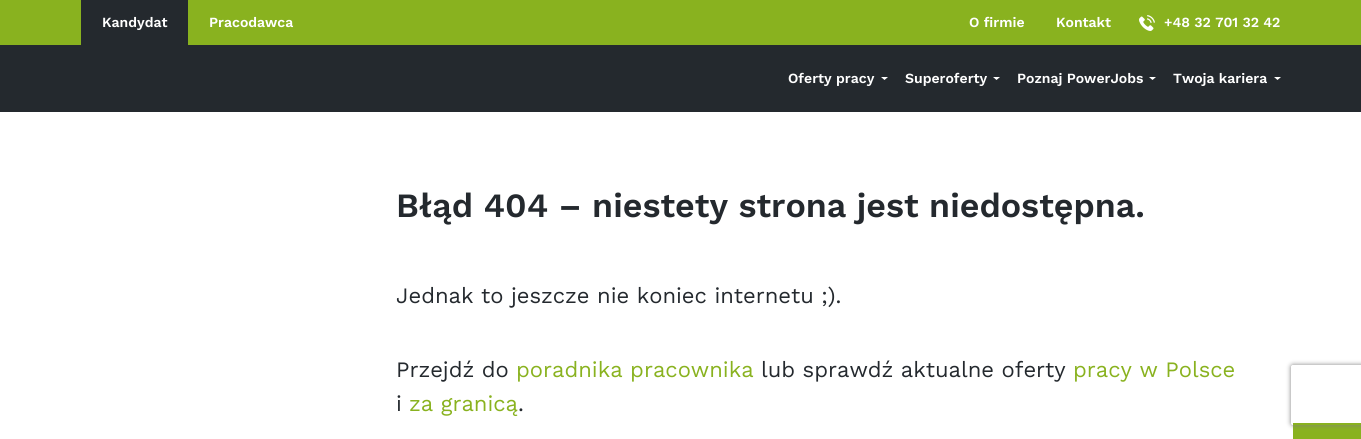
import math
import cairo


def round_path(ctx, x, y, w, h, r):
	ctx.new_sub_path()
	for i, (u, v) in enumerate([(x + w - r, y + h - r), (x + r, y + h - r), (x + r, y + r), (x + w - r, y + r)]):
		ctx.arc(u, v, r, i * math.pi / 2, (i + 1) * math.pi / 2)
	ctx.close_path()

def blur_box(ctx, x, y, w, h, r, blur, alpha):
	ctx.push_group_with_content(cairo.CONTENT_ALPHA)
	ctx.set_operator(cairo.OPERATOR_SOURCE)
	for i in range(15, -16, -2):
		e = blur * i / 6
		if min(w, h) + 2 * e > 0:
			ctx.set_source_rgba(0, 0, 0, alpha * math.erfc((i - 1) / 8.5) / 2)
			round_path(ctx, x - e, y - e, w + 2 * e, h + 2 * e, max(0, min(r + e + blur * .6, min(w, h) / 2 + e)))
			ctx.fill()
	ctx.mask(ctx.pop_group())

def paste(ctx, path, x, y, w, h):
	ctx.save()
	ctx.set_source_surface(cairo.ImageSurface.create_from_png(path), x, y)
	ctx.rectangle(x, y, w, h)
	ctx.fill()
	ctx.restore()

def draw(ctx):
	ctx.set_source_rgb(1, 1, 1)
	ctx.paint()
	ctx.set_source_rgb(0.537, 0.698, 0.122)
	ctx.rectangle(0, 0, 1361, 45)
	ctx.fill()
	ctx.set_source_rgb(0.141, 0.161, 0.18)
	ctx.rectangle(81, 0, 107, 45)
	ctx.fill()
	ctx.select_font_face('Work Sans SemiBold')
	ctx.set_font_size(14)
	ctx.set_source_rgb(1, 1, 1)
	for x, y, s in [
		(102, 27, 'Kandydat'),
		(209, 27, 'Pracodawca'),
		(969, 27, 'O firmie'),
		(1056, 27, 'Kontakt'),
	]:
		ctx.move_to(x, y)
		ctx.show_text(s)
	paste(ctx, 'media/1.png', 1139, 15, 16, 16)
	ctx.move_to(1164, 27)
	ctx.show_text('+48 32 701 32 42')
	ctx.set_source_rgb(0.141, 0.161, 0.18)
	ctx.rectangle(0, 45, 1361, 67)
	ctx.fill()
	ctx.set_source_rgb(1, 1, 1)
	ctx.move_to(788, 83)
	ctx.show_text('Oferty pracy')
	ctx.new_path()
	ctx.move_to(884.5, 80)
	ctx.line_to(881, 77)
	ctx.line_to(888, 77)
	ctx.close_path()
	ctx.fill()
	ctx.move_to(905, 83)
	ctx.show_text('Superoferty')
	ctx.new_path()
	ctx.move_to(996.5, 80)
	ctx.line_to(993, 77)
	ctx.line_to(1000, 77)
	ctx.close_path()
	ctx.fill()
	ctx.move_to(1017, 83)
	ctx.show_text('Poznaj PowerJobs')
	ctx.new_path()
	ctx.move_to(1152.5, 80)
	ctx.line_to(1149, 77)
	ctx.line_to(1156, 77)
	ctx.close_path()
	ctx.fill()
	ctx.move_to(1173, 83)
	ctx.show_text('Twoja kariera')
	ctx.new_path()
	ctx.move_to(1277.5, 80)
	ctx.line_to(1274, 77)
	ctx.line_to(1281, 77)
	ctx.close_path()
	ctx.fill()
	ctx.set_font_size(34)
	ctx.set_source_rgb(0.141, 0.161, 0.18)
	ctx.move_to(396, 217)
	ctx.show_text('Błąd 404 – niestety strona jest niedostępna.')
	ctx.select_font_face('Work Sans')
	ctx.set_font_size(22)
	ctx.move_to(396, 303)
	ctx.show_text('Jednak to jeszcze nie koniec internetu ;).')
	ctx.move_to(396, 377)
	ctx.show_text('Przejdź do')
	ctx.set_source_rgb(0.537, 0.698, 0.122)
	ctx.move_to(516, 377)
	ctx.show_text('poradnika pracownika')
	ctx.set_source_rgb(0.141, 0.161, 0.18)
	ctx.move_to(761, 377)
	ctx.show_text('lub sprawdź aktualne oferty')
	ctx.set_source_rgb(0.537, 0.698, 0.122)
	ctx.move_to(1073, 377)
	ctx.show_text('pracy w Polsce')
	ctx.set_source_rgb(0.141, 0.161, 0.18)
	ctx.move_to(396, 411)
	ctx.show_text('i')
	ctx.set_source_rgb(0.537, 0.698, 0.122)
	ctx.move_to(409, 411)
	ctx.show_text('za granicą')
	ctx.set_source_rgb(0.141, 0.161, 0.18)
	ctx.move_to(518, 411)
	ctx.show_text('.')
	ctx.set_source_rgb(0.537, 0.698, 0.122)
	ctx.rectangle(1293, 423, 68, 16)
	ctx.fill()
	ctx.save()
	ctx.set_fill_rule(cairo.FILL_RULE_EVEN_ODD)
	ctx.new_path()
	ctx.move_to(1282, 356)
	ctx.line_to(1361, 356)
	ctx.line_to(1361, 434)
	ctx.line_to(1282, 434)
	ctx.close_path()
	ctx.move_to(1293, 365)
	ctx.line_to(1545, 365)
	ctx.curve_to(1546, 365, 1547, 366, 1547, 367)
	ctx.line_to(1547, 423)
	ctx.curve_to(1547, 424, 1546, 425, 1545, 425)
	ctx.line_to(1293, 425)
	ctx.curve_to(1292, 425, 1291, 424, 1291, 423)
	ctx.line_to(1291, 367)
	ctx.curve_to(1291, 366, 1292, 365, 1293, 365)
	ctx.close_path()
	ctx.clip()
	ctx.set_source_rgb(0.502, 0.502, 0.502)
	blur_box(ctx, 1291, 365, 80, 60, 2, 2.5, 1)
	ctx.restore()


surface = cairo.ImageSurface(cairo.FORMAT_RGB24, 1361, 439)
ctx = cairo.Context(surface)
options = cairo.FontOptions()
options.set_hint_metrics(cairo.HINT_METRICS_OFF)
options.set_hint_style(cairo.HINT_STYLE_NONE)
ctx.set_font_options(options)
ctx.set_miter_limit(4)
draw(ctx)
surface.write_to_png('image.png')
